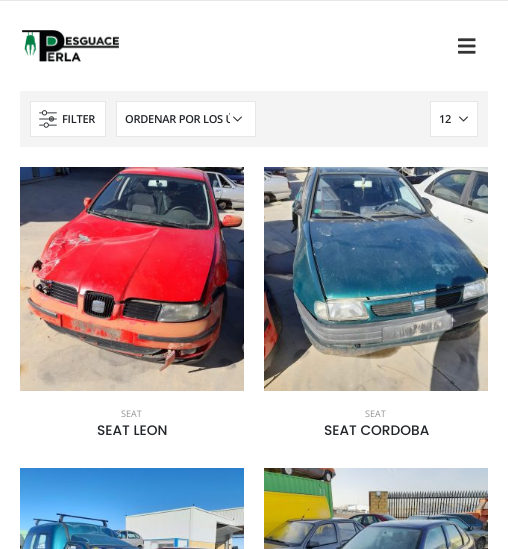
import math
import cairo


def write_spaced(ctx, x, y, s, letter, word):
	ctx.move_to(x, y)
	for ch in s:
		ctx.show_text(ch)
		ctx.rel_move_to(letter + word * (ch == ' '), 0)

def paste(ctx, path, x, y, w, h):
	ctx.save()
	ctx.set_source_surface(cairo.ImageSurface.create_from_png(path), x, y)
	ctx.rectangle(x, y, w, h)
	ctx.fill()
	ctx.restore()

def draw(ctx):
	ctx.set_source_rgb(1, 1, 1)
	ctx.paint()
	ctx.set_source_rgb(0.906, 0.906, 0.906)
	ctx.rectangle(0, 0, 508, 1)
	ctx.fill()
	paste(ctx, 'media/1.png', 22, 30, 97, 32)
	paste(ctx, 'media/2.png', 458, 38, 18, 16)
	ctx.set_source_rgb(0.957, 0.957, 0.957)
	ctx.rectangle(20, 91, 468, 56)
	ctx.fill()
	ctx.set_source_rgb(1, 1, 1)
	ctx.rectangle(30.5, 101.5, 75, 35)
	ctx.fill_preserve()
	ctx.set_source_rgb(0.906, 0.906, 0.906)
	ctx.set_line_width(1)
	ctx.stroke()
	paste(ctx, 'media/3.png', 39, 110, 18, 18)
	ctx.select_font_face('Open Sans SemiBold')
	ctx.set_font_size(11)
	ctx.set_source_rgb(0.133, 0.145, 0.161)
	write_spaced(ctx, 62, 123, 'FILTER', -0.25, 0)
	ctx.set_source_rgb(1, 1, 1)
	ctx.rectangle(117, 102, 138, 34)
	ctx.fill()
	paste(ctx, 'media/4.png', 233, 116, 9, 6)
	ctx.rectangle(116.5, 101.5, 139, 35)
	ctx.set_source_rgb(0.906, 0.906, 0.906)
	ctx.stroke()
	ctx.save()
	ctx.rectangle(125, 111, 105, 16)
	ctx.clip()
	ctx.set_source_rgb(0.133, 0.145, 0.161)
	write_spaced(ctx, 125, 123, 'ORDENAR POR LOS Ú', -0.25, 0)
	ctx.restore()
	ctx.set_source_rgb(1, 1, 1)
	ctx.rectangle(431, 102, 46, 34)
	ctx.fill()
	paste(ctx, 'media/4.png', 459, 116, 9, 6)
	ctx.rectangle(430.5, 101.5, 47, 35)
	ctx.set_source_rgb(0.906, 0.906, 0.906)
	ctx.stroke()
	ctx.set_source_rgb(0.133, 0.145, 0.161)
	write_spaced(ctx, 439, 123, '12', -0.25, 0)
	paste(ctx, 'media/5.png', 20, 167, 224, 224)
	ctx.select_font_face('Open Sans')
	ctx.set_font_size(9)
	ctx.set_source_rgb(0.573, 0.573, 0.573)
	ctx.move_to(121, 417)
	ctx.show_text('SEAT')
	ctx.select_font_face('Poppins Medium')
	ctx.set_font_size(13.75)
	ctx.set_source_rgb(0.133, 0.145, 0.161)
	ctx.move_to(97, 435)
	ctx.show_text('SEAT LEON')
	paste(ctx, 'media/6.png', 264, 167, 224, 224)
	ctx.select_font_face('Open Sans')
	ctx.set_font_size(9)
	ctx.set_source_rgb(0.573, 0.573, 0.573)
	ctx.move_to(365, 417)
	ctx.show_text('SEAT')
	ctx.select_font_face('Poppins Medium')
	ctx.set_font_size(13.75)
	ctx.set_source_rgb(0.133, 0.145, 0.161)
	ctx.move_to(324, 435)
	ctx.show_text('SEAT CORDOBA')
	paste(ctx, 'media/7.png', 20, 468, 224, 81)
	paste(ctx, 'media/8.png', 264, 468, 224, 81)


surface = cairo.ImageSurface(cairo.FORMAT_RGB24, 508, 549)
ctx = cairo.Context(surface)
options = cairo.FontOptions()
options.set_hint_metrics(cairo.HINT_METRICS_OFF)
options.set_hint_style(cairo.HINT_STYLE_NONE)
ctx.set_font_options(options)
ctx.set_miter_limit(4)
draw(ctx)
surface.write_to_png('image.png')
